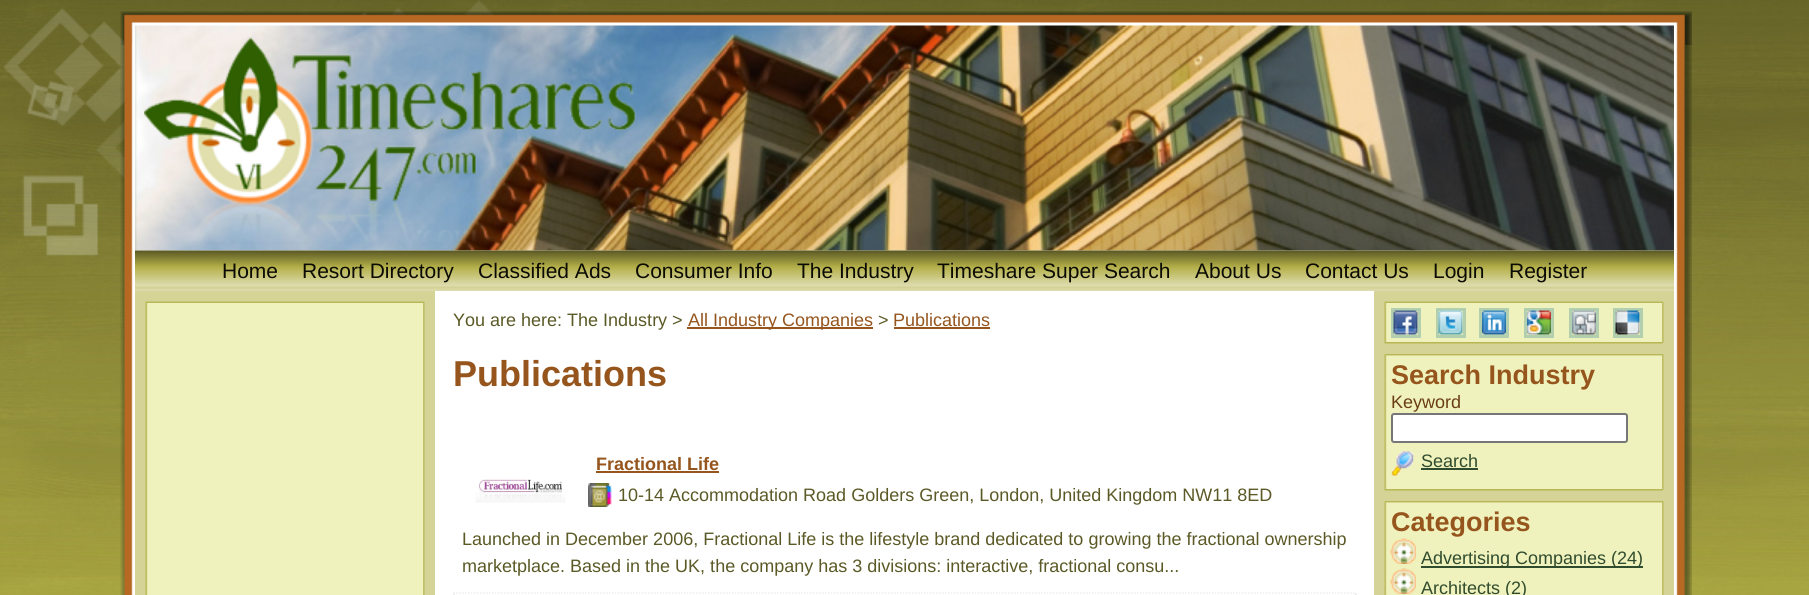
import math
import cairo


def round_path(ctx, x, y, w, h, r):
	ctx.new_sub_path()
	for i, (u, v) in enumerate([(x + w - r, y + h - r), (x + r, y + h - r), (x + r, y + r), (x + w - r, y + r)]):
		ctx.arc(u, v, r, i * math.pi / 2, (i + 1) * math.pi / 2)
	ctx.close_path()

def paste(ctx, path, x, y, w, h):
	ctx.save()
	ctx.set_source_surface(cairo.ImageSurface.create_from_png(path), x, y)
	ctx.rectangle(x, y, w, h)
	ctx.fill()
	ctx.restore()

def draw(ctx):
	ctx.set_source_rgb(1, 1, 1)
	ctx.paint()
	paste(ctx, 'media/1.png', 0, 0, 1809, 595)
	paste(ctx, 'media/2.png', 3, 0, 492, 256)
	paste(ctx, 'media/3.png', 120, 11, 1535, 34)
	paste(ctx, 'media/4.png', 120, 11, 1535, 34)
	paste(ctx, 'media/5.png', 1654, 11, 38, 34)
	paste(ctx, 'media/6.png', 1654, 11, 38, 34)
	paste(ctx, 'media/9.png', 120, 45, 1535, 550)
	paste(ctx, 'media/10.png', 1654, 45, 38, 550)
	paste(ctx, 'media/7.png', 135, 25, 1539, 226)
	paste(ctx, 'media/8.png', 144, 37, 492, 205)
	paste(ctx, 'media/11.png', 135, 250, 1539, 41)
	ctx.select_font_face('Liberation Sans')
	ctx.set_font_size(21)
	ctx.set_source_rgb(0.043, 0.043, 0.016)
	for x, y, s in [
		(222, 278, 'Home'),
		(302, 278, 'Resort Directory'),
		(478, 278, 'Classified Ads'),
		(635, 278, 'Consumer Info'),
		(797, 278, 'The Industry'),
		(937, 278, 'Timeshare Super Search'),
		(1195, 278, 'About Us'),
		(1305, 278, 'Contact Us'),
		(1433, 278, 'Login'),
		(1509, 278, 'Register'),
	]:
		ctx.move_to(x, y)
		ctx.show_text(s)
	ctx.set_source_rgb(0.835, 0.827, 0.584)
	ctx.rectangle(135, 291, 300, 304)
	ctx.fill()
	paste(ctx, 'media/12.png', 145, 301, 278, 2)
	paste(ctx, 'media/13.png', 145, 301, 278, 2)
	paste(ctx, 'media/14.png', 423, 301, 2, 2)
	paste(ctx, 'media/15.png', 423, 301, 2, 2)
	paste(ctx, 'media/16.png', 145, 303, 278, 292)
	paste(ctx, 'media/17.png', 423, 303, 2, 292)
	ctx.set_font_size(18)
	ctx.set_source_rgb(0.357, 0.349, 0.145)
	ctx.move_to(453, 326)
	ctx.show_text('You are here: The Industry >')
	ctx.set_source_rgb(0.584, 0.333, 0.114)
	ctx.rectangle(687, 327, 186, 2)
	ctx.fill()
	ctx.move_to(688, 326)
	ctx.show_text('All Industry Companies')
	ctx.set_source_rgb(0.357, 0.349, 0.145)
	ctx.move_to(878, 326)
	ctx.show_text('>')
	ctx.set_source_rgb(0.584, 0.333, 0.114)
	ctx.move_to(893, 326)
	ctx.show_text('Publications')
	ctx.rectangle(894, 327, 96, 2)
	ctx.fill()
	ctx.select_font_face('Liberation Sans', cairo.FONT_SLANT_NORMAL, cairo.FONT_WEIGHT_BOLD)
	ctx.set_font_size(36)
	ctx.move_to(453, 386)
	ctx.show_text('Publications')
	ctx.set_font_size(18)
	ctx.move_to(596, 470)
	ctx.show_text('Fractional Life')
	ctx.rectangle(596, 471, 123, 2)
	ctx.fill()
	paste(ctx, 'media/18.png', 475, 479, 91, 24)
	paste(ctx, 'media/19.png', 588, 483, 24, 24)
	ctx.select_font_face('Liberation Sans')
	ctx.set_source_rgb(0.357, 0.349, 0.145)
	for x, y, s in [
		(618, 501, '10-14 Accommodation Road Golders Green, London, United Kingdom NW11 8ED'),
		(462, 545, 'Launched in December 2006, Fractional Life is the lifestyle brand dedicated to growing the fractional ownership'),
		(462, 572, 'marketplace. Based in the UK, the company has 3 divisions: interactive, fractional consu...'),
	]:
		ctx.move_to(x, y)
		ctx.show_text(s)
	ctx.new_path()
	ctx.move_to(453, 593)
	ctx.line_to(1356, 593)
	ctx.set_source_rgb(0.933, 0.933, 0.933)
	ctx.set_line_width(1.5)
	ctx.set_dash([1.5, 1.5])
	ctx.stroke()
	ctx.rectangle(1355, 593, 2, 2)
	ctx.rectangle(453, 593, 2, 2)
	ctx.fill()
	ctx.set_source_rgb(0.835, 0.827, 0.584)
	ctx.rectangle(1374, 291, 300, 304)
	ctx.fill()
	paste(ctx, 'media/20.png', 1384, 301, 278, 43)
	paste(ctx, 'media/13.png', 1384, 301, 278, 2)
	paste(ctx, 'media/23.png', 1662, 303, 2, 39)
	paste(ctx, 'media/21.png', 1662, 301, 2, 43)
	paste(ctx, 'media/15.png', 1662, 301, 2, 2)
	paste(ctx, 'media/22.png', 1384, 303, 278, 39)
	ctx.rectangle(1392.5, 309.5, 27, 27)
	ctx.set_source_rgb(0.698, 0.812, 0.686)
	ctx.set_line_width(3)
	ctx.set_dash([])
	ctx.stroke()
	paste(ctx, 'media/24.png', 1393, 310, 25, 25)
	ctx.rectangle(1437.5, 309.5, 27, 27)
	ctx.stroke()
	paste(ctx, 'media/25.png', 1438, 310, 25, 25)
	ctx.rectangle(1480.5, 309.5, 27, 27)
	ctx.stroke()
	paste(ctx, 'media/26.png', 1482, 310, 24, 25)
	ctx.rectangle(1525.5, 309.5, 27, 27)
	ctx.stroke()
	paste(ctx, 'media/27.png', 1527, 310, 24, 25)
	ctx.rectangle(1570.5, 309.5, 27, 27)
	ctx.stroke()
	paste(ctx, 'media/28.png', 1572, 310, 24, 25)
	ctx.rectangle(1614.5, 309.5, 27, 27)
	ctx.stroke()
	paste(ctx, 'media/29.png', 1615, 310, 25, 25)
	paste(ctx, 'media/30.png', 1384, 354, 278, 137)
	paste(ctx, 'media/31.png', 1384, 354, 278, 2)
	paste(ctx, 'media/35.png', 1662, 355, 2, 134)
	paste(ctx, 'media/32.png', 1662, 354, 2, 137)
	paste(ctx, 'media/33.png', 1662, 354, 2, 2)
	paste(ctx, 'media/34.png', 1384, 355, 278, 134)
	ctx.select_font_face('Liberation Sans', cairo.FONT_SLANT_NORMAL, cairo.FONT_WEIGHT_BOLD)
	ctx.set_font_size(27)
	ctx.set_source_rgb(0.584, 0.333, 0.114)
	ctx.move_to(1391, 384)
	ctx.show_text('Search Industry')
	ctx.select_font_face('Liberation Sans')
	ctx.set_font_size(18)
	ctx.set_source_rgb(0.416, 0.239, 0.082)
	ctx.move_to(1391, 408)
	ctx.show_text('Keyword')
	ctx.set_source_rgb(1, 1, 1)
	round_path(ctx, 1392, 414, 235, 28, 2)
	ctx.fill_preserve()
	ctx.set_source_rgb(0.463, 0.463, 0.463)
	ctx.set_line_width(2)
	ctx.stroke()
	paste(ctx, 'media/36.png', 1391, 451, 23, 25)
	ctx.set_source_rgb(0.188, 0.298, 0.18)
	ctx.move_to(1421, 467)
	ctx.show_text('Search')
	ctx.rectangle(1421, 468, 57, 2)
	ctx.fill()
	paste(ctx, 'media/37.png', 1384, 501, 278, 2)
	paste(ctx, 'media/31.png', 1384, 501, 278, 2)
	paste(ctx, 'media/40.png', 1662, 502, 2, 93)
	paste(ctx, 'media/38.png', 1662, 501, 2, 2)
	paste(ctx, 'media/33.png', 1662, 501, 2, 2)
	paste(ctx, 'media/39.png', 1384, 502, 278, 93)
	ctx.select_font_face('Liberation Sans', cairo.FONT_SLANT_NORMAL, cairo.FONT_WEIGHT_BOLD)
	ctx.set_font_size(27)
	ctx.set_source_rgb(0.584, 0.333, 0.114)
	ctx.move_to(1391, 531)
	ctx.show_text('Categories')
	paste(ctx, 'media/41.png', 1390, 538, 26, 26)
	ctx.set_source_rgb(0.188, 0.298, 0.18)
	ctx.rectangle(1421, 566, 222, 2)
	ctx.fill()
	ctx.select_font_face('Liberation Sans')
	ctx.set_font_size(18)
	ctx.move_to(1421, 564)
	ctx.show_text('Advertising Companies (24)')
	paste(ctx, 'media/41.png', 1390, 568, 26, 26)
	ctx.move_to(1421, 594)
	ctx.show_text('Architects (2)')


surface = cairo.ImageSurface(cairo.FORMAT_RGB24, 1809, 595)
ctx = cairo.Context(surface)
options = cairo.FontOptions()
options.set_hint_metrics(cairo.HINT_METRICS_OFF)
options.set_hint_style(cairo.HINT_STYLE_NONE)
ctx.set_font_options(options)
ctx.set_miter_limit(4)
draw(ctx)
surface.write_to_png('image.png')
